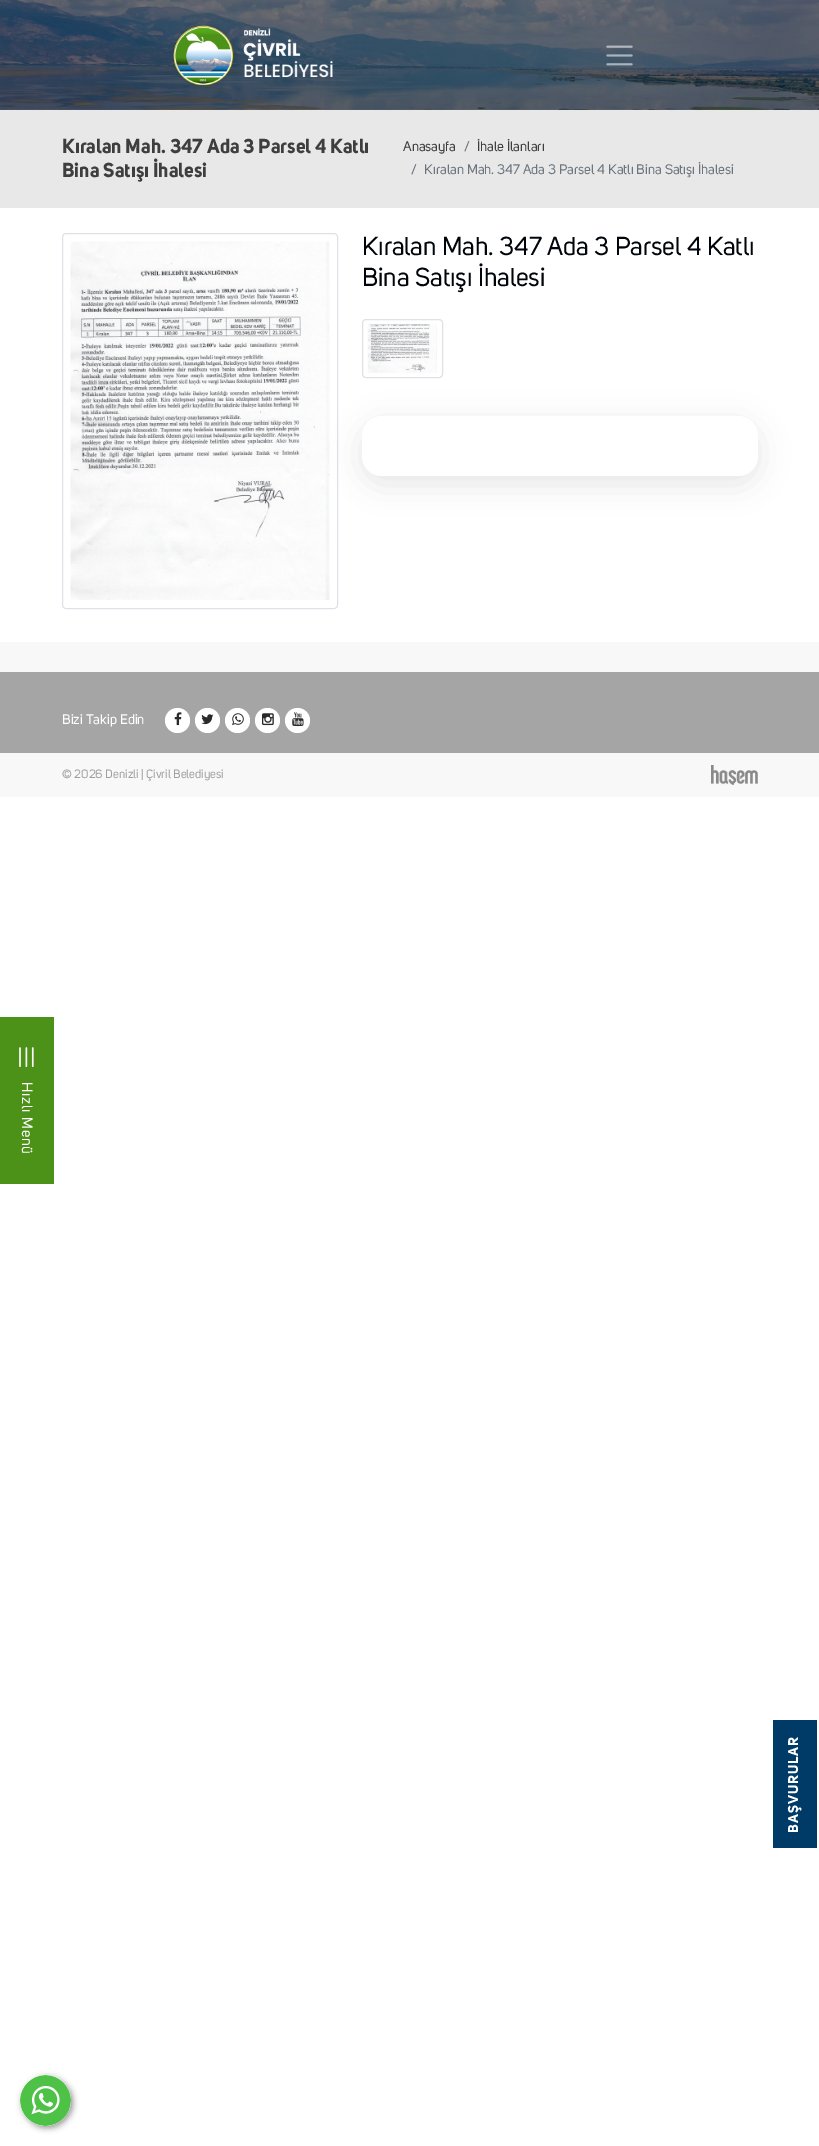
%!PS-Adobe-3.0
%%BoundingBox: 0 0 819 2146
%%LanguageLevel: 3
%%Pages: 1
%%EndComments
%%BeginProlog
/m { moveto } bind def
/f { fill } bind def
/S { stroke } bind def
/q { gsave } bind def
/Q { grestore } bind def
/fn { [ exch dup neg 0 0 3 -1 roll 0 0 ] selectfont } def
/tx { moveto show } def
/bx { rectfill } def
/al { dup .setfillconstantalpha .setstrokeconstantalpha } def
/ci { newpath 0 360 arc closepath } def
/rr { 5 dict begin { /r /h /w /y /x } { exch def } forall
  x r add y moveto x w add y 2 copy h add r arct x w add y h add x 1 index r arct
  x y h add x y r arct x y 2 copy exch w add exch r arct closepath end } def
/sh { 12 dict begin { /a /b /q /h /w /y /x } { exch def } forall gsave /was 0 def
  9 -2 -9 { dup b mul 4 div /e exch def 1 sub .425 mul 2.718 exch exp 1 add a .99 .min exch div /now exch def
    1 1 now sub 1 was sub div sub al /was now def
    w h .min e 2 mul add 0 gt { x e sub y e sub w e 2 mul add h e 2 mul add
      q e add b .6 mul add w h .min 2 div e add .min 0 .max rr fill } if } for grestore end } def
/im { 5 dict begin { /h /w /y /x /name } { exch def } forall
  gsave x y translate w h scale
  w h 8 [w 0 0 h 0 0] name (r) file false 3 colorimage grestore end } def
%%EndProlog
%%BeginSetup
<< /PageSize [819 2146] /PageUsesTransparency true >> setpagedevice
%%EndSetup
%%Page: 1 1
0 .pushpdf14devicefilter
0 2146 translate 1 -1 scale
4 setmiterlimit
1 setgray
0 0 819 2146 bx
(image0.raw) 0 0 819 110 im
(image1.raw) 172 24 161 62 im
(image2.raw) 606 45 27 21 im
0.91 setgray
0 110 819 98 bx
/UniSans-Bold 20 fn
0.243 setgray
(Kıralan Mah. 347 Ada 3 Parsel 4 Katlı) 62 153 tx
(Bina Satışı İhalesi) 62 177 tx
/UniSans-Regular 13.75 fn
(Anasayfa) 403 151 tx
0.424 0.459 0.49 setrgbcolor
(/) 464 151 tx
0.243 setgray
(İhale İlanları) 477 151 tx
0.424 0.459 0.49 setrgbcolor
(/) 411 174 tx
(Kıralan Mah. 347 Ada 3 Parsel 4 Katlı Bina Satışı İhalesi) 424 174 tx
0.871 0.886 0.902 setrgbcolor
62.5 233.5 275 375 3.5 rr S
(image3.raw) 70 241 260 359 im
/UniSans-Regular 25.75 fn
0 0.02 0.043 setrgbcolor
(Kıralan Mah. 347 Ada 3 Parsel 4 Katlı) 362 255 tx
(Bina Satışı İhalesi) 362 286 tx
0.871 0.886 0.902 setrgbcolor
362.5 319.5 80 58 3.5 rr S
(image4.raw) 367 324 70 49 im
0 setgray
362 424 396 60 20 15 0.1 sh
1 setgray
362 416 396 60 20 rr f
0.973 setgray
0 642 819 155 bx
0.647 setgray
0 672 819 81 bx
/UniSans-Regular 13.75 fn
1 setgray
(Bizi Takip Edin) 62 724 tx
177.5 720.5 12.5 ci f
(image5.raw) 174 712 8 14 im
207.5 720.5 12.5 ci f
(image6.raw) 201 714 13 11 im
237.5 720.5 12.5 ci f
(image7.raw) 232 713 12 13 im
267.5 720.5 12.5 ci f
(image8.raw) 262 713 12 13 im
297.5 720.5 12.5 ci f
(image9.raw) 292 712 12 15 im
/UniSans-Regular 12 fn
0.624 setgray
(© 2026 Denizli | Çivril Belediyesi) 62 778 tx
(image10.raw) 711 765 47 20 im
0.298 0.573 0.094 setrgbcolor
0 1017 54 167 bx
(image11.raw) 19 1047 15 20 im
/UniSans-Regular 15 fn
1 setgray
q 22 1082 translate 90 rotate 0 0 m 0.75 0 (Hızlı Menü) ashow Q
0 0.231 0.408 setrgbcolor
773 1720 44 128 bx
/UniSans-Bold 14 fn
1 setgray
q 798 1833 translate -90 rotate 0 0 m 1 0 (BAŞVURULAR) ashow Q
0 setgray
22 2077 51 51 25.5 3 0.4 sh
(image12.raw) 20 2075 51 51 im
.poppdf14devicefilter showpage
%%EOF
